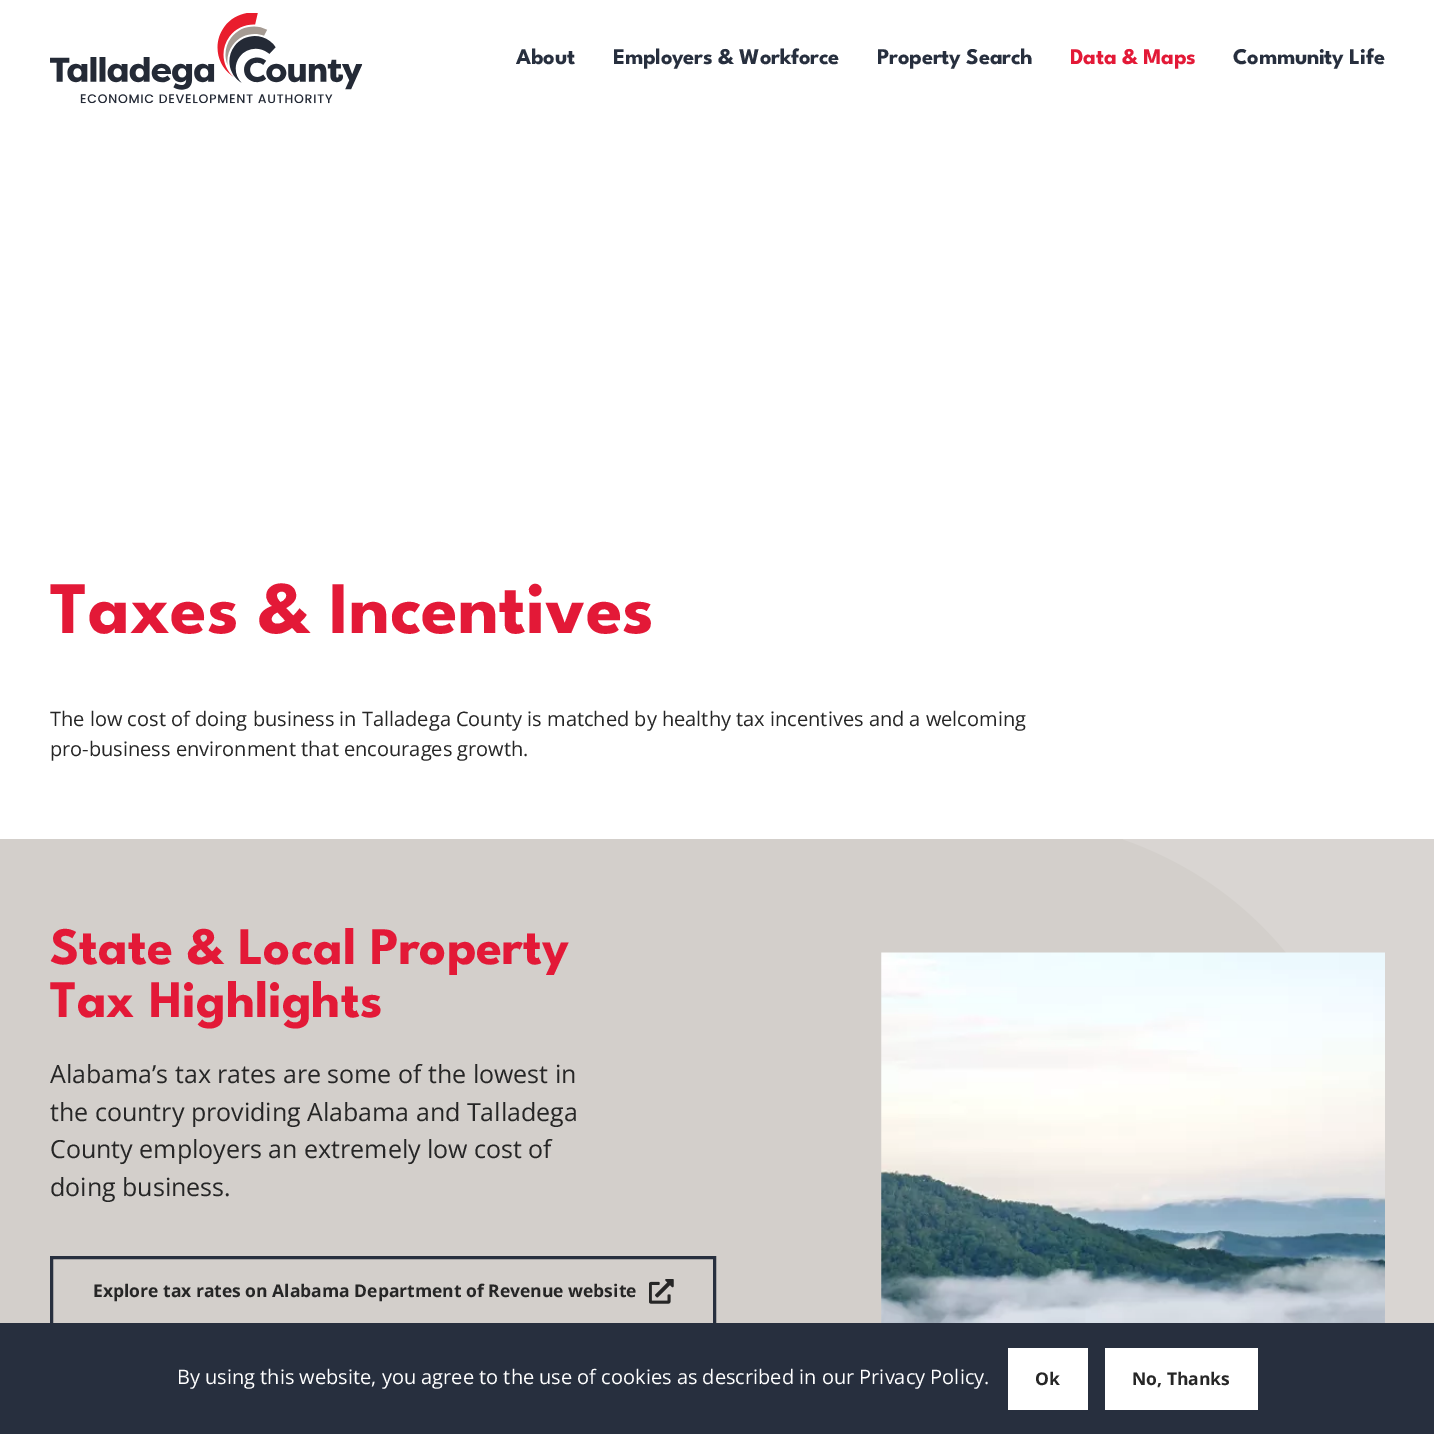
%!PS-Adobe-3.0
%%BoundingBox: 0 0 1434 1434
%%LanguageLevel: 3
%%Pages: 1
%%EndComments
%%BeginProlog
/m { moveto } bind def
/w { setlinewidth } bind def
/fn { [ exch dup neg 0 0 3 -1 roll 0 0 ] selectfont } def
/tx { moveto show } def
/bx { rectfill } def
/im { 5 dict begin { /h /w /y /x /name } { exch def } forall
  gsave x y translate w h scale
  w h 8 [w 0 0 h 0 0] name (r) file false 3 colorimage grestore end } def
%%EndProlog
%%BeginSetup
<< /PageSize [1434 1434] >> setpagedevice
%%EndSetup
%%Page: 1 1
0 1434 translate 1 -1 scale
4 setmiterlimit
1 setgray
0 0 1434 1434 bx
(image0.raw) 50 13 313 91 im
/LeagueSpartan-Thin 22.5 fn
0.153 0.184 0.243 setrgbcolor
516 64 m -0.25 0 (About) ashow
613 64 m -0.25 0 (Employers & Workforce) ashow
877 64 m -0.25 0 (Property Search) ashow
0.89 0.098 0.216 setrgbcolor
1070 64 m -0.25 0 (Data & Maps) ashow
0.153 0.184 0.243 setrgbcolor
1233 64 m -0.25 0 (Community Life) ashow
/LeagueSpartan-Thin 74 fn
0.89 0.098 0.216 setrgbcolor
(Taxes & Incentives) 50 633 tx
/OpenSans-Regular 20 fn
0.149 setgray
(The low cost of doing business in Talladega County is matched by healthy tax incentives and a welcoming) 50 726 tx
(pro-business environment that encourages growth.) 50 756 tx
0.827 0.812 0.796 setrgbcolor
0 839 1434 484 bx
(image1.raw) 1123 839 311 484 im
/LeagueSpartan-Thin 52.5 fn
0.89 0.098 0.216 setrgbcolor
(State & Local Property) 50 964 tx
(Tax Highlights) 50 1017 tx
/OpenSans-Regular 25 fn
0.149 setgray
(Alabama’s tax rates are some of the lowest in) 50 1083 tx
(the country providing Alabama and Talladega) 50 1121 tx
(County employers an extremely low cost of) 50 1158 tx
(doing business.) 50 1196 tx
0.153 0.184 0.243 setrgbcolor
3 w
51.5 1257.5 663 67 rectstroke
/OpenSans-Bold 17.5 fn
0.149 setgray
(Explore tax rates on Alabama Department of Revenue website) 93 1297 tx
(image2.raw) 649 1279 25 25 im
(image3.raw) 881 952 504 371 im
0.153 0.184 0.243 setrgbcolor
0 1323 1434 111 bx
/OpenSans-Regular 20 fn
1 setgray
(By using this website, you agree to the use of cookies as described in our Privacy Policy.) 177 1384 tx
1008 1348 80 62 bx
/OpenSans-Bold 17.5 fn
0.149 setgray
(Ok) 1035 1385 tx
1 setgray
1105 1348 153 62 bx
0.149 setgray
(No, Thanks) 1132 1385 tx
showpage
%%EOF
